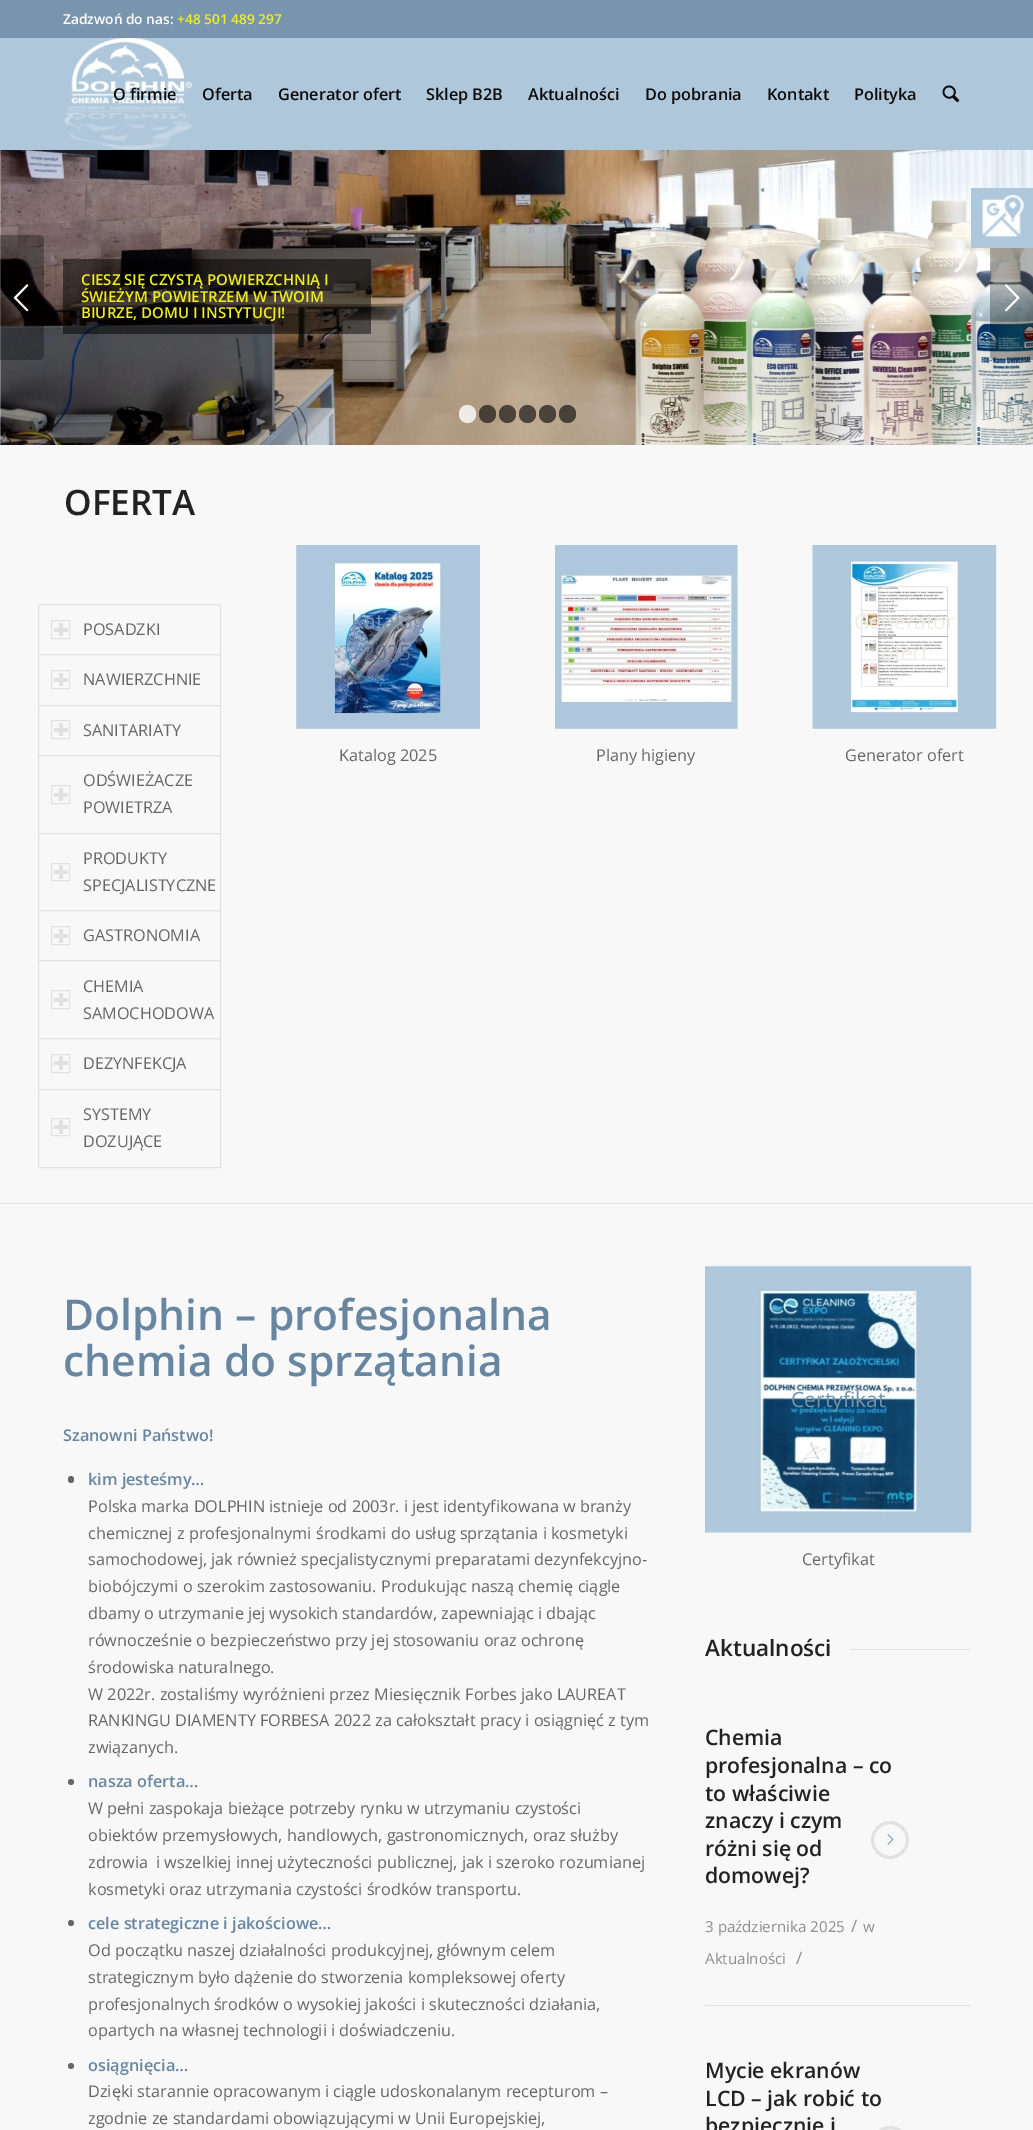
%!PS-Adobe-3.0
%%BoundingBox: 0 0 1033 2130
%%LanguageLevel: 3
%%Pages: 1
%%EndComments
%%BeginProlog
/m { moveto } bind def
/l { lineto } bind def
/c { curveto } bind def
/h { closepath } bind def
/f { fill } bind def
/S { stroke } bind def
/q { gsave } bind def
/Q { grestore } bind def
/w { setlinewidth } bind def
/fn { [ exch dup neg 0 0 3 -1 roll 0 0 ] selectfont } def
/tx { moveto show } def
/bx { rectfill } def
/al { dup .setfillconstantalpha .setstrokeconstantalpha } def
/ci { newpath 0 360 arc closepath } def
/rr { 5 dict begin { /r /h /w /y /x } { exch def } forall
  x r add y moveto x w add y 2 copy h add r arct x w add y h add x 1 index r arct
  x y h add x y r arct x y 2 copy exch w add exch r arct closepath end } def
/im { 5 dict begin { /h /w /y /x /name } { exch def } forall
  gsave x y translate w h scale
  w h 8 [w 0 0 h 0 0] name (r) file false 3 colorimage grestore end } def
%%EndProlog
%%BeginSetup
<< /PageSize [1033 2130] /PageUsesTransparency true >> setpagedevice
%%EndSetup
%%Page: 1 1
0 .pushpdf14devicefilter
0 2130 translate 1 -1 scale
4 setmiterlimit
0.973 setgray
0 0 1033 2130 bx
0.475 0.584 0.678 setrgbcolor
0 0 1033 38 bx
/OpenSans-SemiBold 13.75 fn
1 setgray
(Zadzwoń do nas:) 63 24 tx
0.933 0.933 0.133 setrgbcolor
(+48 501 489 297) 177 24 tx
0.686 0.78 0.859 setrgbcolor
0 38 1033 112 bx
(image0.raw) 63 38 130 112 im
/OpenSans-SemiBold 16.25 fn
0.051 0.047 0.051 setrgbcolor
(O firmie) 113 100 tx
(Oferta) 202 100 tx
(Generator ofert) 278 100 tx
(Sklep B2B) 426 100 tx
(Aktualności) 528 100 tx
(Do pobrania) 645 100 tx
(Kontakt) 767 100 tx
(Polityka) 854 100 tx
(image1.raw) 942 85 18 18 im
(image4.raw) 0 150 1033 295 im
0.3 al
0 setgray
0 235 m 40 235 l 42 235 44 237 44 239 c 44 356 l 44 358 42 360 40 360 c 0 360 l h f
1 al
(image2.raw) 13 284 16 28 im
0.3 al
994 235 m 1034 235 l 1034 360 l 994 360 l 992 360 990 358 990 356 c 990 239 l 990 237 992 235 994 235 c h f
1 al
(image3.raw) 1005 284 15 28 im
0.5 al
63 259 308 75 bx
/OpenSans-SemiBold 15 fn
1 al
0.933 0.933 0.133 setrgbcolor
(CIESZ SIĘ CZYSTĄ POWIERZCHNIĄ I) 81 285 tx
(ŚWIEŻYM POWIETRZEM W TWOIM) 81 302 tx
(BIURZE, DOMU I INSTYTUCJI!) 81 318 tx
0.8 al
1 setgray
459 405 17 18 8.5 rr f
0.6 al
0 setgray
479 405 17 18 8.5 rr f
499 405 17 18 8.5 rr f
519 405 17 18 8.5 rr f
539 405 17 18 8.5 rr f
559 405 17 18 8.5 rr f
/OpenSans-SemiBold 35 fn
1 al
0.133 setgray
(OFERTA) 64 515 tx
0.882 setgray
40.5 604.5 m 218.5 604.5 l 219.5 604.5 220.5 605.5 220.5 606.5 c 220.5 654.5 l 38.5 654.5 l 38.5 606.5 l 38.5 605.5 39.5 604.5 40.5 604.5 c h S
51.5 620.5 18 18 rectstroke
59 623 4 13 bx
54 628 14 4 bx
/OpenSans-Regular 16.25 fn
0.4 setgray
(POSADZKI) 83 635 tx
0.973 setgray
40.5 654.5 m 218.5 654.5 l 219.5 654.5 220.5 655.5 220.5 656.5 c 220.5 705.5 l 38.5 705.5 l 38.5 656.5 l 38.5 655.5 39.5 654.5 40.5 654.5 c h q f Q
0.882 setgray
S
51.5 670.5 18 18 rectstroke
59 673 4 13 bx
54 678 14 4 bx
0.4 setgray
(NAWIERZCHNIE) 83 685 tx
0.973 setgray
40.5 705.5 m 218.5 705.5 l 219.5 705.5 220.5 706.5 220.5 707.5 c 220.5 755.5 l 38.5 755.5 l 38.5 707.5 l 38.5 706.5 39.5 705.5 40.5 705.5 c h q f Q
0.882 setgray
S
51.5 720.5 18 18 rectstroke
59 723 4 13 bx
54 728 14 4 bx
0.4 setgray
(SANITARIATY) 83 736 tx
0.973 setgray
40.5 755.5 m 218.5 755.5 l 219.5 755.5 220.5 756.5 220.5 757.5 c 220.5 833.5 l 38.5 833.5 l 38.5 757.5 l 38.5 756.5 39.5 755.5 40.5 755.5 c h q f Q
0.882 setgray
S
0.4 setgray
(ODŚWIEŻACZE) 83 786 tx
0.882 setgray
51.5 785.5 18 18 rectstroke
59 788 4 13 bx
54 793 14 4 bx
0.4 setgray
(POWIETRZA) 83 813 tx
0.973 setgray
40.5 833.5 m 218.5 833.5 l 219.5 833.5 220.5 834.5 220.5 835.5 c 220.5 910.5 l 38.5 910.5 l 38.5 835.5 l 38.5 834.5 39.5 833.5 40.5 833.5 c h q f Q
0.882 setgray
S
0.4 setgray
(PRODUKTY) 83 864 tx
0.882 setgray
51.5 863.5 18 17 rectstroke
59 865 4 14 bx
54 870 14 4 bx
0.4 setgray
(SPECJALISTYCZNE) 83 891 tx
0.973 setgray
40.5 910.5 m 218.5 910.5 l 219.5 910.5 220.5 911.5 220.5 912.5 c 220.5 960.5 l 38.5 960.5 l 38.5 912.5 l 38.5 911.5 39.5 910.5 40.5 910.5 c h q f Q
0.882 setgray
S
51.5 926.5 18 18 rectstroke
59 929 4 14 bx
54 934 14 4 bx
0.4 setgray
(GASTRONOMIA) 83 941 tx
0.973 setgray
40.5 960.5 m 218.5 960.5 l 219.5 960.5 220.5 961.5 220.5 962.5 c 220.5 1038.5 l 38.5 1038.5 l 38.5 962.5 l 38.5 961.5 39.5 960.5 40.5 960.5 c h q f Q
0.882 setgray
S
0.4 setgray
(CHEMIA) 83 992 tx
0.882 setgray
51.5 990.5 18 18 rectstroke
59 993 4 13 bx
54 998 14 4 bx
0.4 setgray
(SAMOCHODOWA) 83 1019 tx
0.973 setgray
40.5 1038.5 m 218.5 1038.5 l 219.5 1038.5 220.5 1039.5 220.5 1040.5 c 220.5 1089.5 l 38.5 1089.5 l 38.5 1040.5 l 38.5 1039.5 39.5 1038.5 40.5 1038.5 c h q f Q
0.882 setgray
S
51.5 1054.5 18 18 rectstroke
59 1056 4 14 bx
54 1061 14 4 bx
0.4 setgray
(DEZYNFEKCJA) 83 1069 tx
0.973 setgray
40.5 1089.5 m 218.5 1089.5 l 219.5 1089.5 220.5 1090.5 220.5 1091.5 c 220.5 1167.5 l 38.5 1167.5 l 38.5 1091.5 l 38.5 1090.5 39.5 1089.5 40.5 1089.5 c h q f Q
0.882 setgray
S
0.4 setgray
(SYSTEMY) 83 1120 tx
0.882 setgray
51.5 1118.5 18 17 rectstroke
59 1120 4 14 bx
54 1125 14 4 bx
0.4 setgray
(DOZUJĄCE) 83 1147 tx
(image5.raw) 296 545 184 184 im
/OpenSans-Regular 21 fn
0.475 0.569 0.675 setrgbcolor
(Katalog) 351 629 tx
0.392 0.447 0.553 setrgbcolor
(2025) 363 660 tx
/OpenSans-Regular 16.25 fn
0.4 setgray
(Katalog 2025) 339 761 tx
(image6.raw) 555 545 183 184 im
(Plany higieny) 596 761 tx
(image7.raw) 812 545 185 184 im
/OpenSans-Regular 21 fn
0.933 0.925 0.914 setrgbcolor
(Generator) 854 629 tx
(ofert) 881 660 tx
/OpenSans-Regular 16.25 fn
0.4 setgray
(Generator ofert) 845 761 tx
0.882 setgray
0 1203 1033 1 bx
/OpenSans-SemiBold 42.5 fn
0.404 0.525 0.631 setrgbcolor
(Dolphin – profesjonalna) 63 1330 tx
(chemia do sprzątania) 63 1376 tx
/OpenSans-SemiBold 16.25 fn
(Szanowni Państwo!) 63 1441 tx
0.4 setgray
68 1476 6 7 3 rr f
0.404 0.525 0.631 setrgbcolor
(kim jesteśmy…) 88 1485 tx
/OpenSans-Regular 16.25 fn
0.4 setgray
(Polska marka DOLPHIN istnieje od 2003r. i jest identyfikowana w branży) 88 1512 tx
(chemicznej z profesjonalnymi środkami do usług sprzątania i kosmetyki) 88 1539 tx
(samochodowej, jak również specjalistycznymi preparatami dezynfekcyjno-) 88 1565 tx
(biobójczymi o szerokim zastosowaniu. Produkując naszą chemię ciągle) 88 1592 tx
(dbamy o utrzymanie jej wysokich standardów, zapewniając i dbając) 88 1619 tx
(równocześnie o bezpieczeństwo przy jej stosowaniu oraz ochronę) 88 1646 tx
(środowiska naturalnego.) 88 1673 tx
(W 2022r. zostaliśmy wyróżnieni przez Miesięcznik Forbes jako LAUREAT) 88 1700 tx
(RANKINGU DIAMENTY FORBESA 2022 za całokształt pracy i osiągnięć z tym) 88 1726 tx
(związanych.) 88 1753 tx
71 1782 3 ci f
/OpenSans-SemiBold 16.25 fn
0.404 0.525 0.631 setrgbcolor
(nasza oferta…) 88 1787 tx
/OpenSans-Regular 16.25 fn
0.4 setgray
(W pełni zaspokaja bieżące potrzeby rynku w utrzymaniu czystości) 88 1814 tx
(obiektów przemysłowych, handlowych, gastronomicznych, oraz służby) 88 1841 tx
(zdrowia  i wszelkiej innej użyteczności publicznej, jak i szeroko rozumianej) 88 1868 tx
(kosmetyki oraz utrzymania czystości środków transportu.) 88 1895 tx
71 1923 3 ci f
/OpenSans-SemiBold 16.25 fn
0.404 0.525 0.631 setrgbcolor
(cele strategiczne i jakościowe…) 88 1929 tx
/OpenSans-Regular 16.25 fn
0.4 setgray
(Od początku naszej działalności produkcyjnej, głównym celem) 88 1956 tx
(strategicznym było dążenie do stworzenia kompleksowej oferty) 88 1983 tx
(profesjonalnych środków o wysokiej jakości i skuteczności działania,) 88 2010 tx
(opartych na własnej technologii i doświadczeniu.) 88 2036 tx
71 2066 3 ci f
/OpenSans-SemiBold 16.25 fn
0.404 0.525 0.631 setrgbcolor
(osiągnięcia…) 88 2071 tx
/OpenSans-Regular 16.25 fn
0.4 setgray
(Dzięki starannie opracowanym i ciągle udoskonalanym recepturom –) 88 2097 tx
(zgodnie ze standardami obowiązującymi w Unii Europejskiej,) 88 2124 tx
(image8.raw) 705 1266 267 267 im
/OpenSans-Regular 21 fn
0.443 0.58 0.671 setrgbcolor
(Certyfikat) 791 1407 tx
/OpenSans-Regular 16.25 fn
0.4 setgray
(Certyfikat) 802 1565 tx
/OpenSans-SemiBold 22.5 fn
0.133 setgray
(Aktualności) 705 1656 tx
0.886 setgray
850 1649 121 1 bx
/OpenSans-SemiBold 21.25 fn
0.133 setgray
(Chemia) 705 1745 tx
(profesjonalna – co) 705 1773 tx
(to właściwie) 705 1801 tx
(znaczy i czym) 705 1828 tx
(różni się od) 705 1856 tx
(domowej?) 705 1883 tx
0.882 setgray
3 w
890 1840 17.5 ci S
(image9.raw) 887 1834 7 11 im
/OpenSans-Regular 15.1 fn
0.553 setgray
(3 października 2025) 705 1932 tx
/OpenSans-Regular 17 fn
(/) 851 1932 tx
/OpenSans-Regular 15.1 fn
(w) 863 1932 tx
(Aktualności) 705 1964 tx
/OpenSans-Regular 17 fn
(/) 796 1964 tx
0.882 setgray
705 2005 266 1 bx
/OpenSans-SemiBold 21.25 fn
0.133 setgray
(Mycie ekranów) 705 2078 tx
(LCD – jak robić to) 705 2106 tx
(bezpiecznie i) 705 2133 tx
0.882 setgray
872.5 2127.5 35 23 17.5 rr S
0.686 0.78 0.859 setrgbcolor
971 188 62 60 bx
(image10.raw) 982 194 42 43 im
.poppdf14devicefilter showpage
%%EOF
